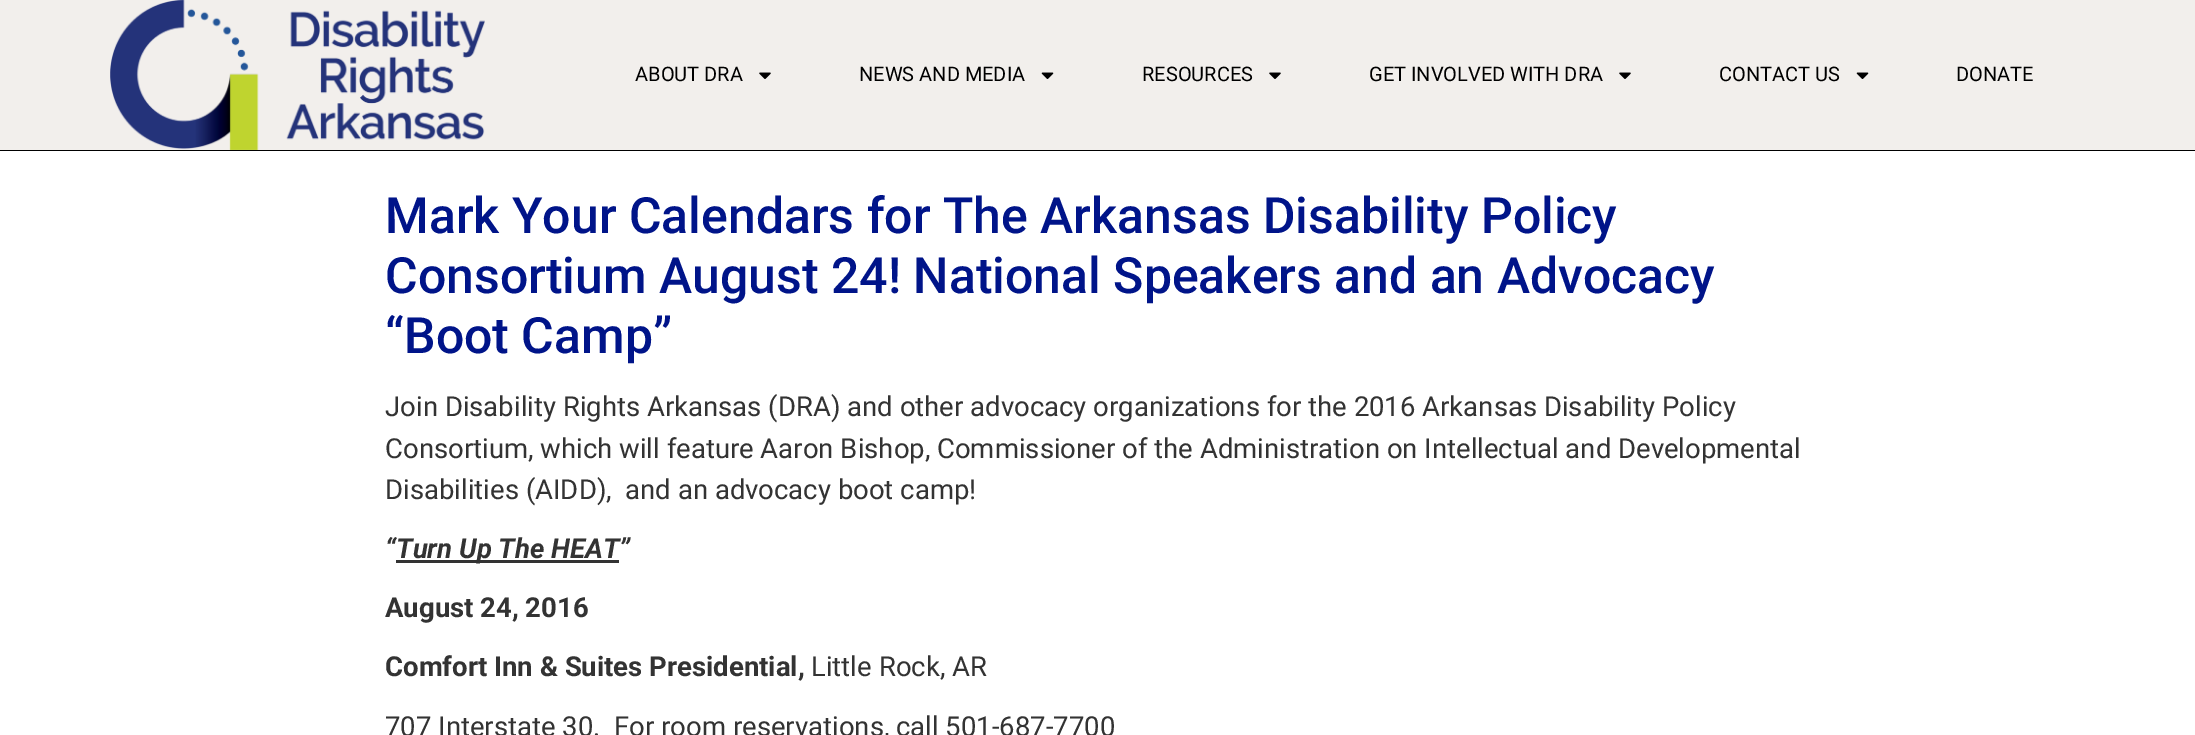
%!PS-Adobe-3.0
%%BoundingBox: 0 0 2195 735
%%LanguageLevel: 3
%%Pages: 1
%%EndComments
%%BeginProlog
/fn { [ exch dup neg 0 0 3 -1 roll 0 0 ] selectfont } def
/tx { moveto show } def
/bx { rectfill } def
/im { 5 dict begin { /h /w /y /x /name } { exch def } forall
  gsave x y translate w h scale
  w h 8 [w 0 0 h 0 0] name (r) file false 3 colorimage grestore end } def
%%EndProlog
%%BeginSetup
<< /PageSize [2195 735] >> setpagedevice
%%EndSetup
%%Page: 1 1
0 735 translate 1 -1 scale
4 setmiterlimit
1 setgray
0 0 2195 735 bx
0.949 0.937 0.925 setrgbcolor
0 0 2195 150 bx
0 setgray
0 150 2195 1 bx
(image0.raw) 110 0 375 150 im
/Roboto-Regular 20 fn
(ABOUT DRA) 635 81 tx
(image1.raw) 759 72 12 7 im
(NEWS AND MEDIA) 859 81 tx
(image2.raw) 1041 72 13 7 im
(RESOURCES) 1142 81 tx
(image1.raw) 1269 72 12 7 im
(GET INVOLVED WITH DRA) 1369 81 tx
(image1.raw) 1619 72 12 7 im
(CONTACT US) 1719 81 tx
(image2.raw) 1856 72 13 7 im
(DONATE) 1956 81 tx
/Roboto-Medium 50 fn
0 0.078 0.537 setrgbcolor
(Mark Your Calendars for The Arkansas Disability Policy) 385 233 tx
(Consortium August 24! National Speakers and an Advocacy) 385 293 tx
(“Boot Camp”) 385 353 tx
/Roboto-Regular 27.5 fn
0.2 setgray
(Join Disability Rights Arkansas \(DRA\) and other advocacy organizations for the 2016 Arkansas Disability Policy) 385 416 tx
(Consortium, which will feature Aaron Bishop, Commissioner of the Administration on Intellectual and Developmental) 385 458 tx
(Disabilities \(AIDD\),  and an advocacy boot camp!) 385 499 tx
/Roboto-BoldItalic 27.5 fn
(“) 385 558 tx
396 560 223 3 bx
(Turn Up The HEAT”) 396 558 tx
/Roboto-Bold 27.5 fn
(August 24, 2016) 385 617 tx
(Comfort Inn & Suites Presidential,) 385 676 tx
/Roboto-Regular 27.5 fn
(Little Rock, AR) 811 676 tx
(707 Interstate 30.  For room reservations, call 501-687-7700) 385 736 tx
showpage
%%EOF
